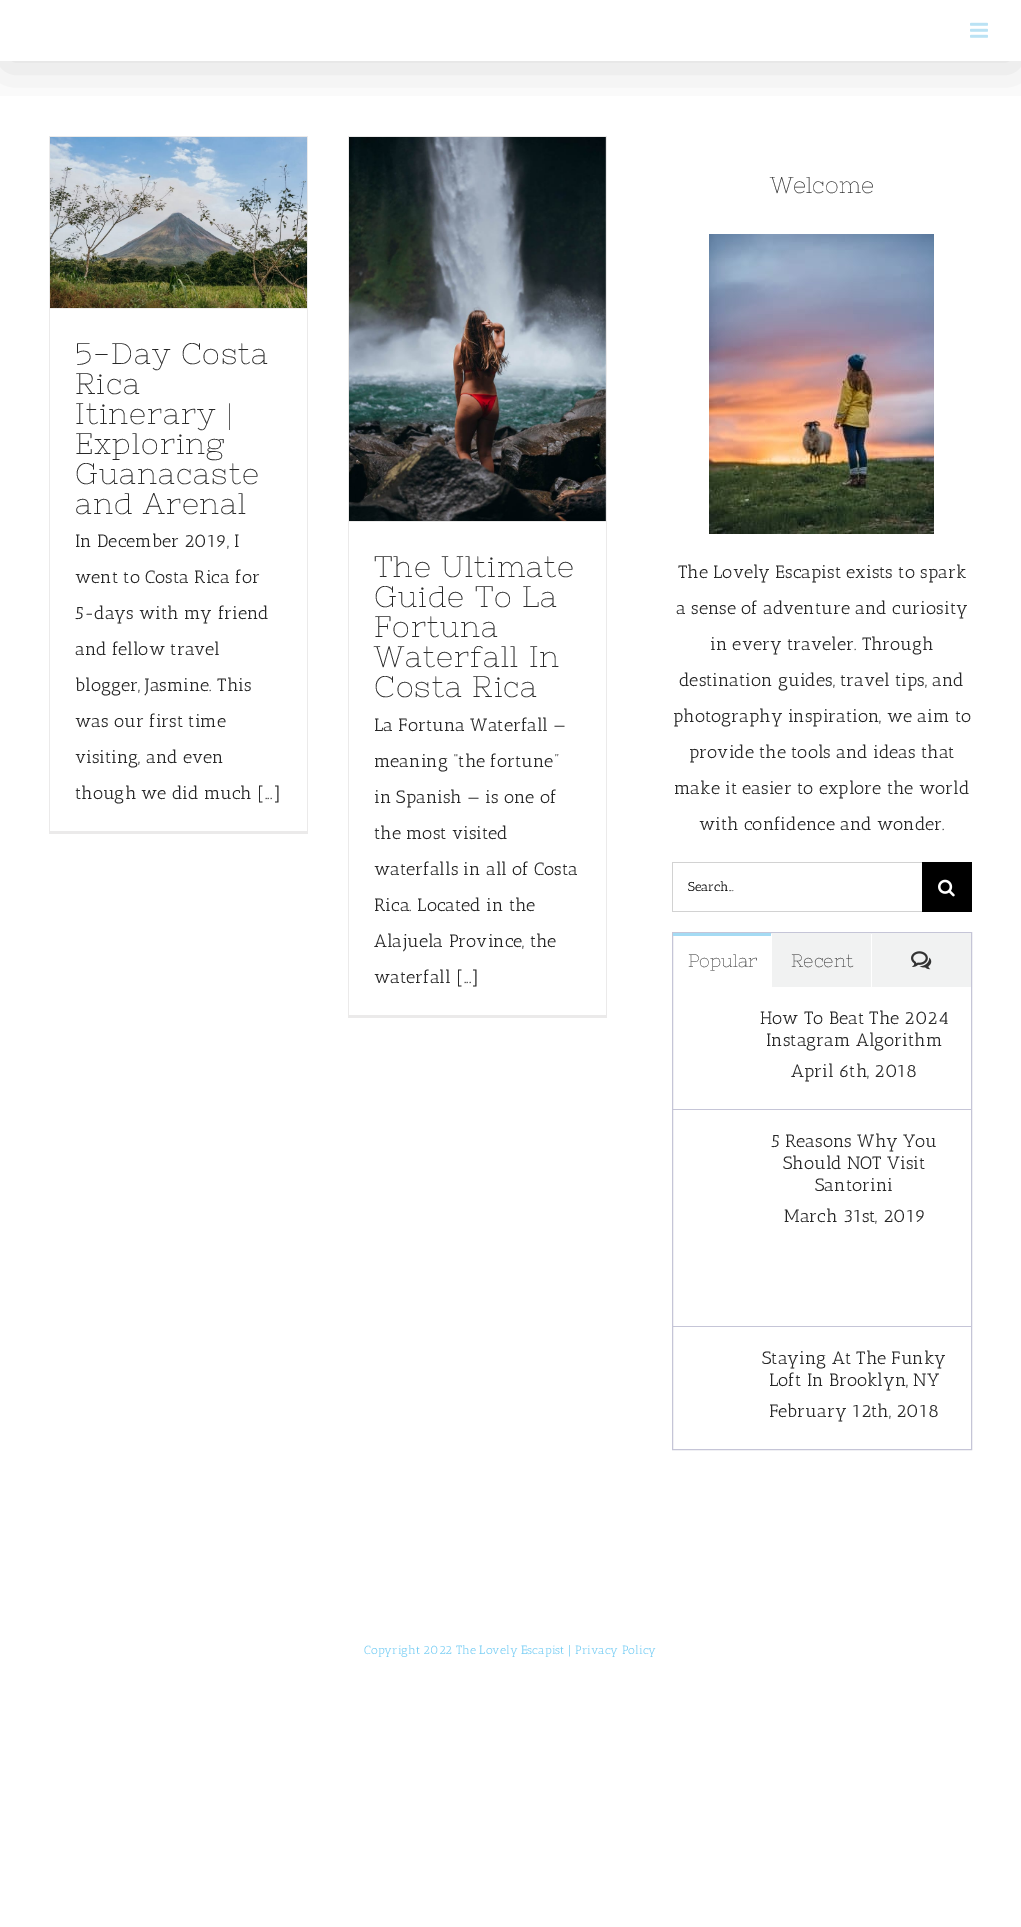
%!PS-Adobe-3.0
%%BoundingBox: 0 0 1021 1927
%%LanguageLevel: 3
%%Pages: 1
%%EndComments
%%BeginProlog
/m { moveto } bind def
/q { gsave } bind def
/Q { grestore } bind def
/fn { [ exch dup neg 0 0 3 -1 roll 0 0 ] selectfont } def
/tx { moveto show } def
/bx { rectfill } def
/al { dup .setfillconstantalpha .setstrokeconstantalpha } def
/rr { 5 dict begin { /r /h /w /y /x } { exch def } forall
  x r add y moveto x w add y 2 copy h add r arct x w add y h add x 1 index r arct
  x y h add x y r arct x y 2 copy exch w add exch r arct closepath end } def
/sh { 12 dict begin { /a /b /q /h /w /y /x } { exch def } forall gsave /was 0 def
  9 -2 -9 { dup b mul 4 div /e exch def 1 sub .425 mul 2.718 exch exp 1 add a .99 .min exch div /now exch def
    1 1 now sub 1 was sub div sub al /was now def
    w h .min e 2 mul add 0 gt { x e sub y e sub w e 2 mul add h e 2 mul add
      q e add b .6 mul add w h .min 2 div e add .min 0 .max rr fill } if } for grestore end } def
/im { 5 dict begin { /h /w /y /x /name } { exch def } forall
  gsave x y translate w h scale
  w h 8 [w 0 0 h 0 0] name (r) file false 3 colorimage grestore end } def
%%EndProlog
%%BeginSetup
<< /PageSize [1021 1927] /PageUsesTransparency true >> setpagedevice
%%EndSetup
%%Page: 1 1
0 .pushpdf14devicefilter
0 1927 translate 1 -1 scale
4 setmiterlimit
1 setgray
0 0 1021 1927 bx
0.922 0.918 0.918 setrgbcolor
49 136 259 1 bx
307 136 1 698 bx
49 831 259 3 bx
49 136 1 698 bx
(image1.raw) 50 137 257 171 im
348 136 259 1 bx
606 136 1 882 bx
348 1015 259 3 bx
348 136 1 882 bx
(image2.raw) 349 137 257 384 im
q
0 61 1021 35 rectclip
0 setgray
2 12 1017 57 0 25 0.14 sh
Q
(image0.raw) 970 22 18 16 im
50 308 257 1 bx
/NixieOne-Regular 29.75 fn
0.157 setgray
75 364 m 1 0 (5-Day Costa) ashow
75 394 m 1 0 (Rica) ashow
75 424 m 1 0 (Itinerary |) ashow
75 454 m 1 0 (Exploring) ashow
75 484 m 1 0 (Guanacaste) ashow
75 514 m 1 0 (and Arenal) ashow
/AnticSlab-Regular 18 fn
(In December 2019, I) 75 547 tx
(went to Costa Rica for) 75 583 tx
(5-days with my friend) 75 619 tx
(and fellow travel) 75 655 tx
(blogger, Jasmine. This) 75 691 tx
(was our first time) 75 727 tx
(visiting, and even) 75 763 tx
(though we did much [...]) 75 799 tx
0.922 0.918 0.918 setrgbcolor
349 521 257 1 bx
/NixieOne-Regular 29.75 fn
0.157 setgray
374 577 m 1 0 (The Ultimate) ashow
374 607 m 1 0 (Guide To La) ashow
374 637 m 1 0 (Fortuna) ashow
374 667 m 1 0 (Waterfall In) ashow
374 697 m 1 0 (Costa Rica) ashow
/AnticSlab-Regular 18 fn
(La Fortuna Waterfall —) 374 731 tx
(meaning “the fortune”) 374 767 tx
(in Spanish — is one of) 374 803 tx
(the most visited) 374 839 tx
(waterfalls in all of Costa) 374 875 tx
(Rica. Located in the) 374 911 tx
(Alajuela Province, the) 374 947 tx
(waterfall [...]) 374 983 tx
/NixieOne-Regular 23 fn
0.2 setgray
(Welcome) 770 193 tx
(image3.raw) 709 234 225 300 im
/AnticSlab-Regular 18 fn
0.157 setgray
(The Lovely Escapist exists to spark) 678 578 tx
(a sense of adventure and curiosity) 676 614 tx
(in every traveler. Through) 710 650 tx
(destination guides, travel tips, and) 679 686 tx
(photography inspiration, we aim to) 673 722 tx
(provide the tools and ideas that) 689 758 tx
(make it easier to explore the world) 674 794 tx
(with confidence and wonder.) 699 830 tx
0.824 setgray
672 862 250 1 bx
672 911 250 1 bx
672 862 1 50 bx
/AnticSlab-Regular 13 fn
0 setgray
(Search...) 688 891 tx
922 862 50 50 bx
(image4.raw) 938 879 17 18 im
0.773 0.773 0.843 setrgbcolor
672.5 932.5 299 517 rectstroke
0.643 0.859 0.957 setrgbcolor
673 933 98 3 bx
/NixieOne-Regular 18 fn
0.2 setgray
(Popular) 688 967 tx
0.945 0.949 0.949 setrgbcolor
772 933 99 54 bx
0.2 setgray
(Recent) 791 967 tx
0.945 0.949 0.949 setrgbcolor
872 933 99 54 bx
(image5.raw) 911 951 21 19 im
0.773 0.773 0.843 setrgbcolor
673 1109 298 1 bx
/AnticSlab-Regular 18 fn
0.157 setgray
(How To Beat The 2024) 760 1024 tx
(Instagram Algorithm) 766 1046 tx
(April 6th, 2018) 791 1077 tx
0.773 0.773 0.843 setrgbcolor
673 1326 298 1 bx
0.157 setgray
(5 Reasons Why You) 771 1147 tx
(Should NOT Visit) 783 1169 tx
(Santorini) 815 1191 tx
(March 31st, 2019) 784 1222 tx
(Staying At The Funky) 762 1364 tx
(Loft In Brooklyn, NY) 769 1386 tx
(February 12th, 2018) 769 1417 tx
/AnticSlab-Regular 12 fn
0.478 0.808 0.957 setrgbcolor
(Copyright 2022 The Lovely Escapist | Privacy Policy) 364 1654 tx
.poppdf14devicefilter showpage
%%EOF
